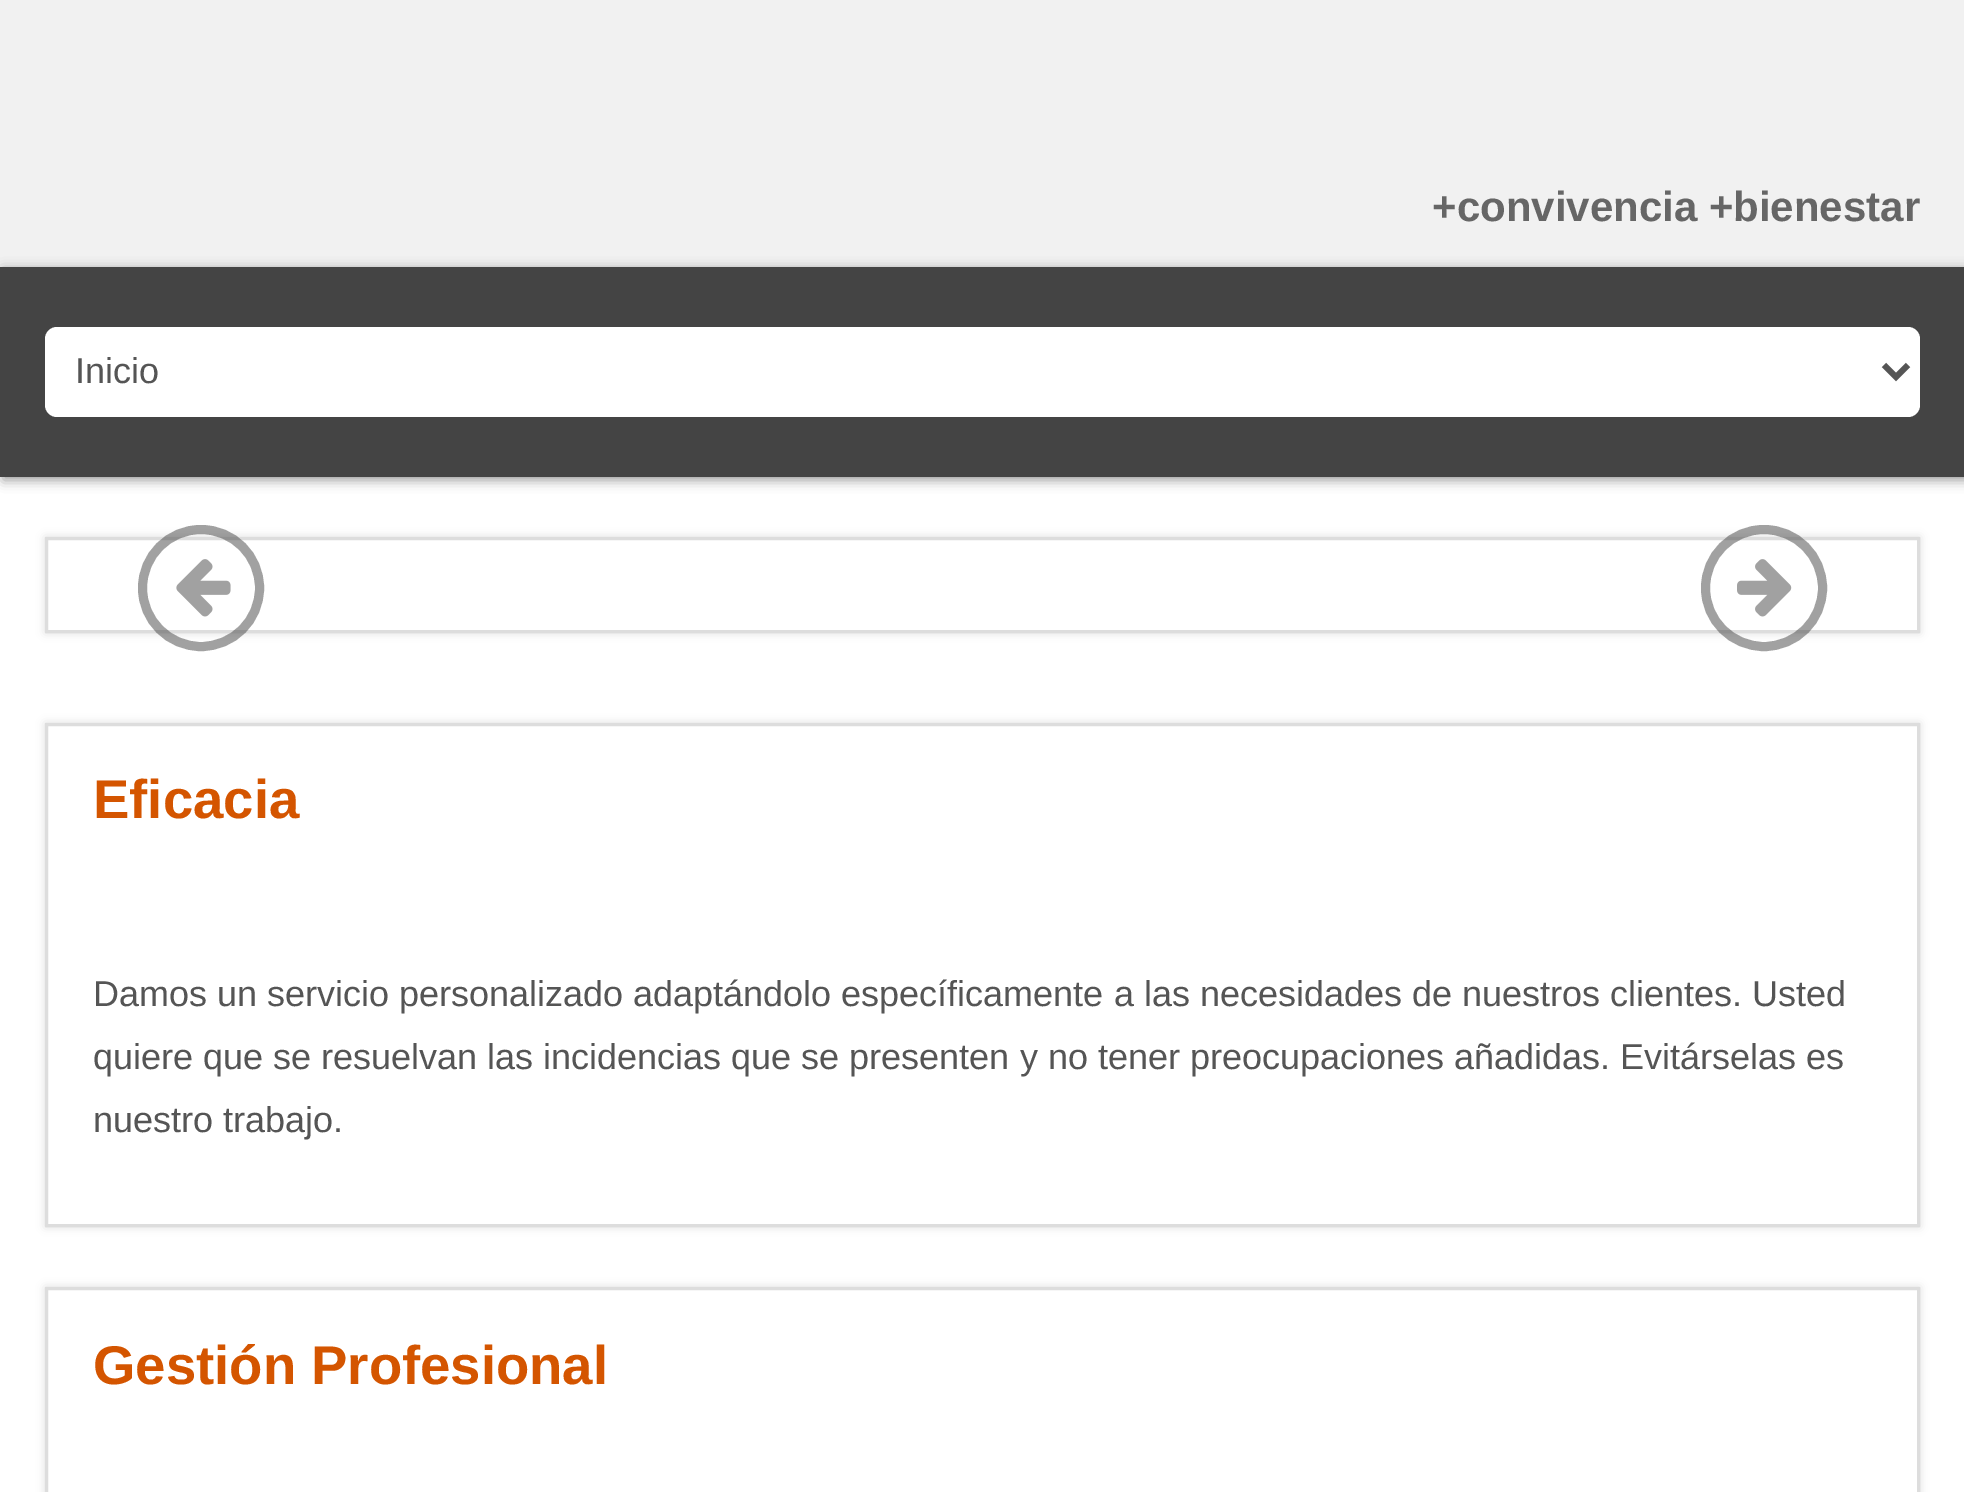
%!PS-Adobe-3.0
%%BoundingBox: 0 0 1964 1492
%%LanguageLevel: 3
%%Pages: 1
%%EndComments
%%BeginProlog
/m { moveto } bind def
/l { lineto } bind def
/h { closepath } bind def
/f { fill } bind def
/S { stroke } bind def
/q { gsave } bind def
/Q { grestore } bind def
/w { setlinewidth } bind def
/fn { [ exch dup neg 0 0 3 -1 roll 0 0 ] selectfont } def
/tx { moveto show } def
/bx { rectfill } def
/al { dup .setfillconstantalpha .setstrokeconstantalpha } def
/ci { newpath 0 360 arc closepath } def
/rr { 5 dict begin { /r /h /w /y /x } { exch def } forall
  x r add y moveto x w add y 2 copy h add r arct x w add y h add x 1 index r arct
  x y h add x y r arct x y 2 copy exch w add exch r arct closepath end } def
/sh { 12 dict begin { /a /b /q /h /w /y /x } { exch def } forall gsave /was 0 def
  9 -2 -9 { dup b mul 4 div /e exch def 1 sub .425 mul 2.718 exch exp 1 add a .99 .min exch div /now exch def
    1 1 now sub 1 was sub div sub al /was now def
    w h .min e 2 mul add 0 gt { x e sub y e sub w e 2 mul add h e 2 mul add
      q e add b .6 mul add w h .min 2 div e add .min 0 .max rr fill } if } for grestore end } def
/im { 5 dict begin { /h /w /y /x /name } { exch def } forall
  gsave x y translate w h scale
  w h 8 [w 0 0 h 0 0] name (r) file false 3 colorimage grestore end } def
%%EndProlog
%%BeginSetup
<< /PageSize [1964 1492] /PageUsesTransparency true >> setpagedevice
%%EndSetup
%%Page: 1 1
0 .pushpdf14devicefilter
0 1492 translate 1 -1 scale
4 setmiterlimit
1 setgray
0 0 1964 1492 bx
0.945 setgray
0 0 1964 267 bx
/LiberationSans-Bold 42 fn
0.4 setgray
(+convivencia +bienestar) 1432 221 tx
0 setgray
3 270 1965 210 0 6 0.4 sh
0.267 setgray
0 267 1964 210 bx
1 setgray
45 327 1875 90 12 rr f
0.333 setgray
6 w
1884 365 m 1896 377 l 1908 365 l S
/LiberationSans-Regular 36 fn
(Inicio) 75 383 tx
q
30 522 m 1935 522 l 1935 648 l 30 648 l h 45 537 m 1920 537 l 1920 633 l 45 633 l h eoclip newpath
0 setgray
45 537 1875 96 0 4.5 0.13 sh
Q
0.867 setgray
3 w
46.5 538.5 1872 93 rectstroke
0.5 al
0.267 setgray
9 w
201 588 58.5 ci S
1 al
(image0.raw) 176 559 55 58 im
0.5 al
1764 588 58.5 ci S
1 al
(image1.raw) 1737 559 55 58 im
q
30 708 m 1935 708 l 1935 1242 l 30 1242 l h 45 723 m 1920 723 l 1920 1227 l 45 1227 l h eoclip newpath
0 setgray
45 723 1875 504 0 4.5 0.13 sh
Q
0.867 setgray
3 w
46.5 724.5 1872 501 rectstroke
/LiberationSans-Bold 54.5 fn
0.831 0.333 0 setrgbcolor
(Eficacia) 93 818 tx
/LiberationSans-Regular 36 fn
0.333 setgray
(Damos un servicio personalizado adaptándolo específicamente a las necesidades de nuestros clientes. Usted) 93 1006 tx
(quiere que se resuelvan las incidencias que se presenten y no tener preocupaciones añadidas. Evitárselas es) 93 1069 tx
(nuestro trabajo.) 93 1132 tx
q
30 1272 m 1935 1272 l 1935 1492 l 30 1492 l h 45 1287 m 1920 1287 l 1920 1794 l 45 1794 l h eoclip newpath
0 setgray
45 1287 1875 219 0 4.5 0.13 sh
Q
0.867 setgray
46.5 1288.5 1872 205 rectstroke
/LiberationSans-Bold 54.5 fn
0.831 0.333 0 setrgbcolor
(Gestión Profesional) 93 1384 tx
.poppdf14devicefilter showpage
%%EOF
